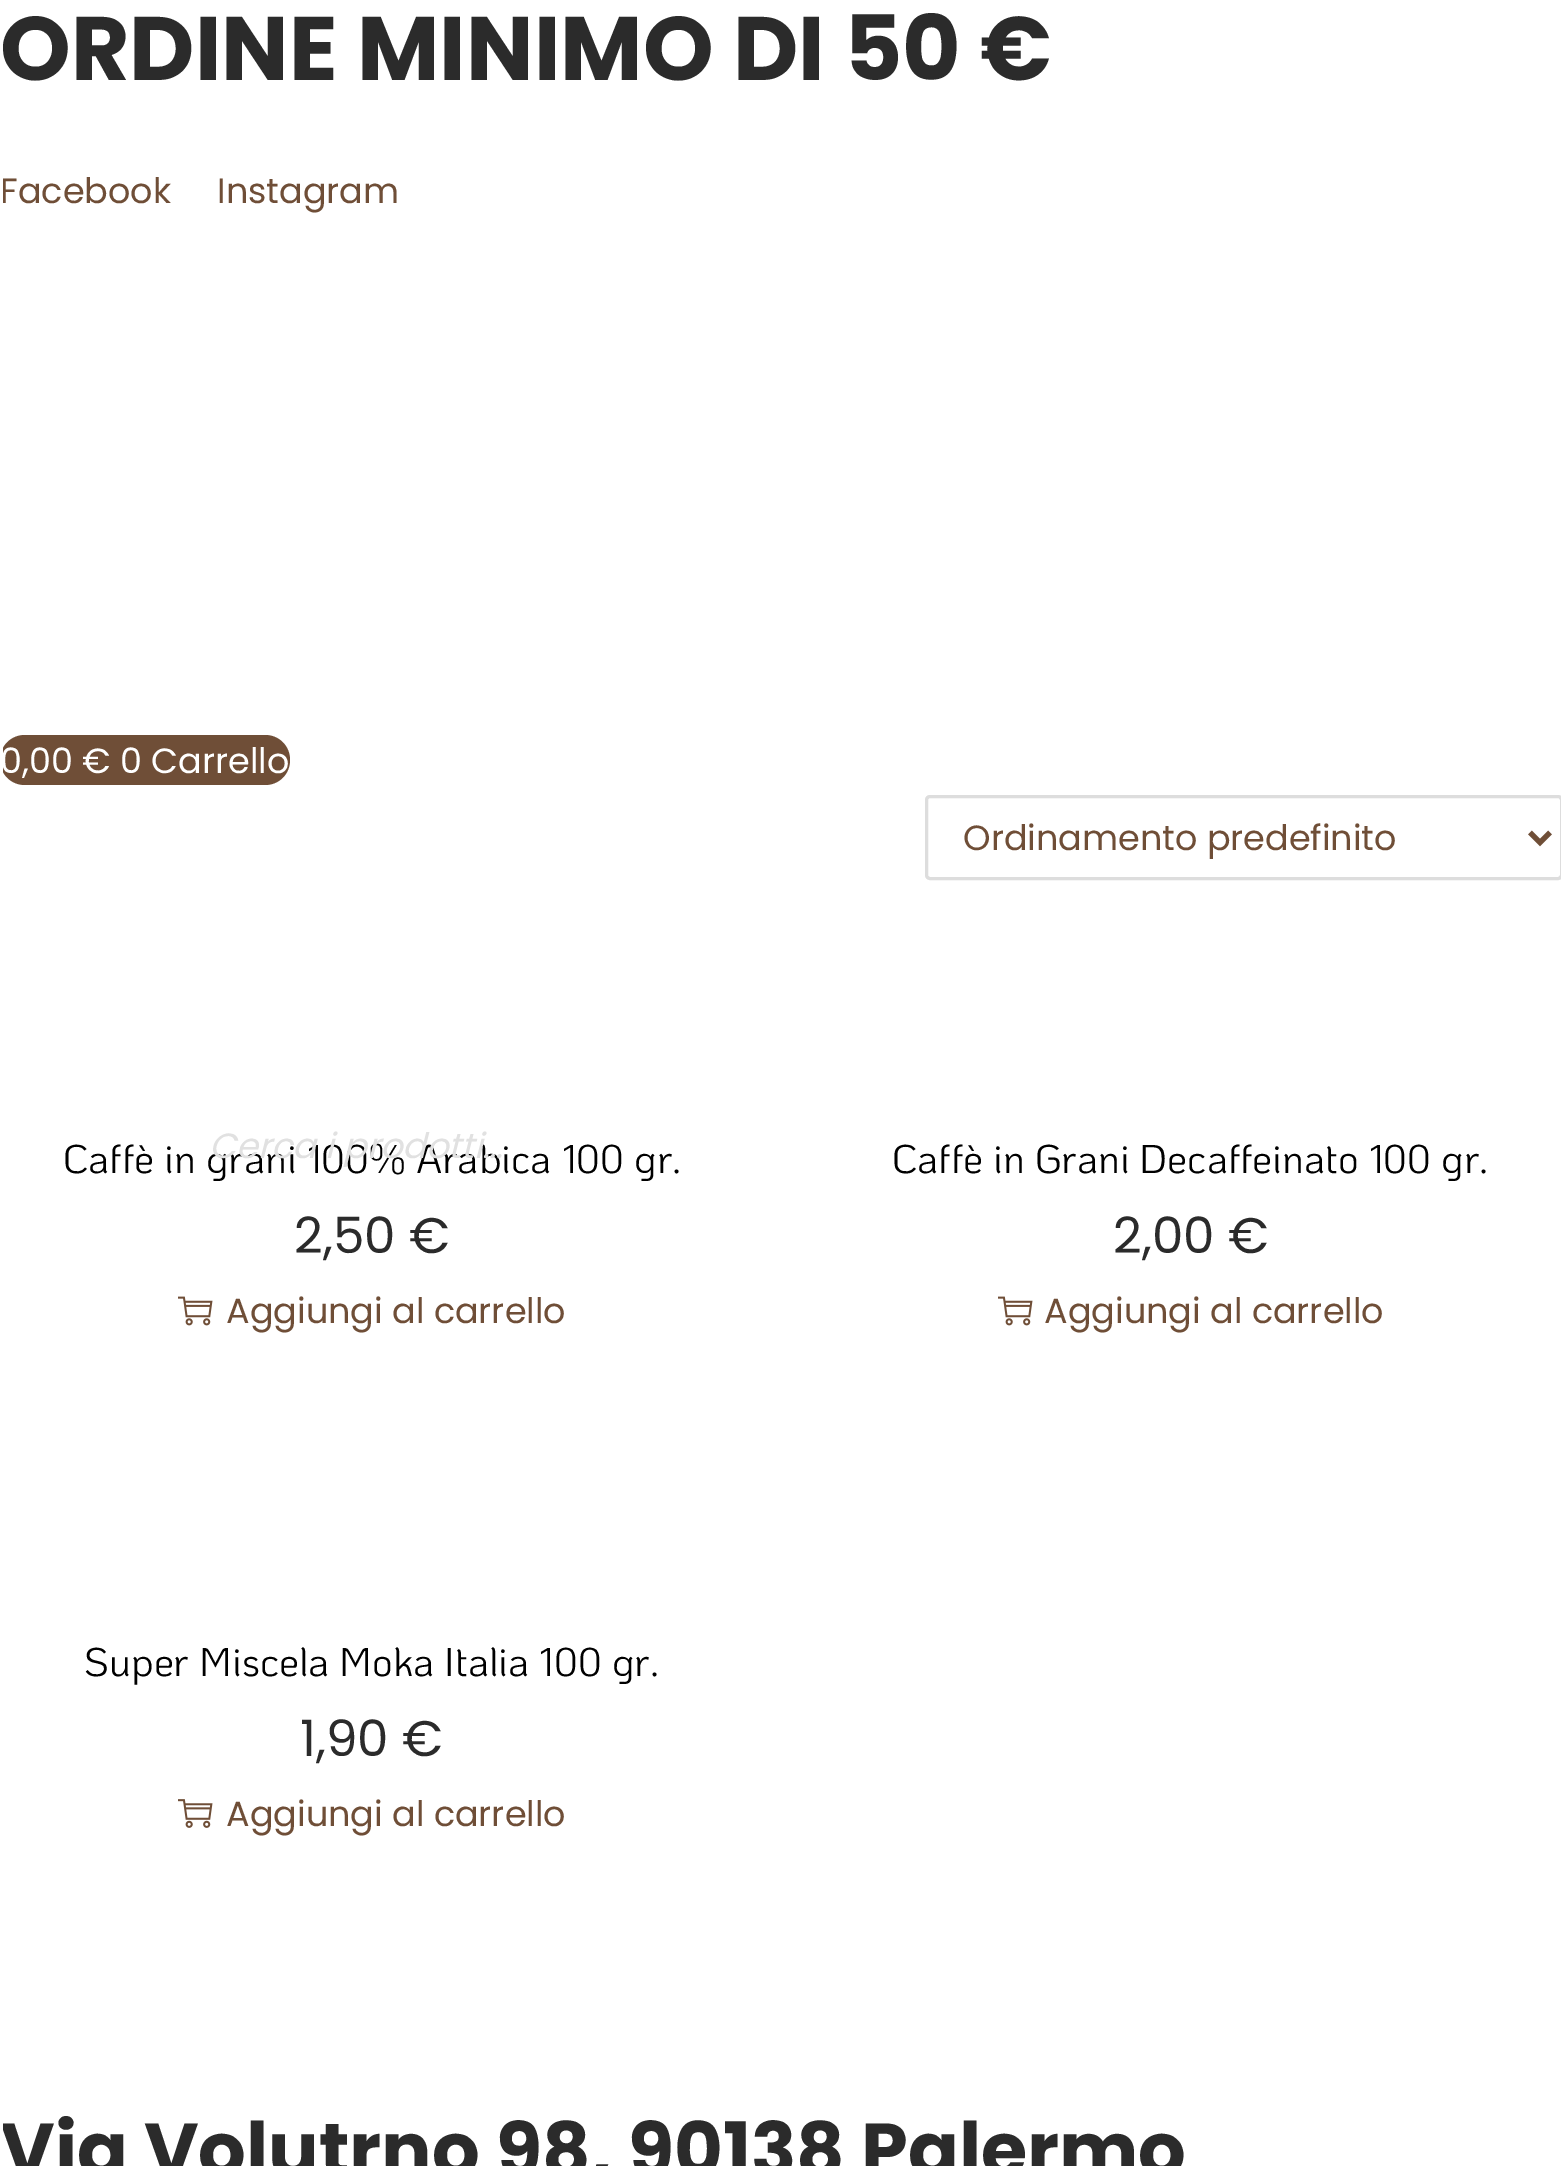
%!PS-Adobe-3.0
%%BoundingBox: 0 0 1561 2166
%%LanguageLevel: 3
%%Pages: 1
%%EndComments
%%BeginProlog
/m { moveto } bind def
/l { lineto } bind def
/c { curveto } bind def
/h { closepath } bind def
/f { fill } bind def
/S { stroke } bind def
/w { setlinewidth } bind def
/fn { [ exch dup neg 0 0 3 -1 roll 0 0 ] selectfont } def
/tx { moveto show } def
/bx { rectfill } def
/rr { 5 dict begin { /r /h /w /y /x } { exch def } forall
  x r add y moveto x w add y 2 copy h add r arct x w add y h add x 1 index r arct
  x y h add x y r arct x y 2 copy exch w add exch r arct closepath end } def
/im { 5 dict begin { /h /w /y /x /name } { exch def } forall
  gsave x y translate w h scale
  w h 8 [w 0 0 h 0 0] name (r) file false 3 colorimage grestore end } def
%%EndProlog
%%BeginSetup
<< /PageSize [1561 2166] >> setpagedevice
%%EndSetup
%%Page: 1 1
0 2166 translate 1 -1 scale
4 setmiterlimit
1 setgray
0 0 1561 2166 bx
/Poppins-Bold 90 fn
0.169 setgray
(ORDINE MINIMO DI 50 €) 0 80 tx
/Poppins-Regular 35 fn
0.435 0.306 0.216 setrgbcolor
(Facebook) 0 203 tx
(Instagram) 217 203 tx
25 735 m 83 735 l 83 785 l 25 785 l 11 785 0 774 0 760 c 0 746 11 735 25 735 c h f
83 735 70 50 bx
153 735 m 265 735 l 279 735 290 746 290 760 c 290 774 279 785 265 785 c 153 785 l h f
1 setgray
(0,00 € 0 Carrello) 0 773 tx
0.867 setgray
3 w
926.5 796.5 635 82 3.5 rr S
0.435 0.306 0.216 setrgbcolor
5 w
1530 832.5 m 1540 842.5 l 1550 832.5 l S
(Ordinamento predefinito) 963 850 tx
/KoHo-Regular 40 fn
0 setgray
(Caffè in grani 100% Arabica 100 gr.) 63 1173 tx
/Poppins-Regular 50 fn
0.169 setgray
(2,50 €) 294 1253 tx
(image0.raw) 178 1296 35 30 im
/Poppins-Regular 35 fn
0.435 0.306 0.216 setrgbcolor
(Aggiungi al carrello) 226 1323 tx
/KoHo-Regular 40 fn
0 setgray
(Caffè in Grani Decaffeinato 100 gr.) 892 1173 tx
/Poppins-Regular 50 fn
0.169 setgray
(2,00 €) 1113 1253 tx
(image0.raw) 998 1296 35 30 im
/Poppins-Regular 35 fn
0.435 0.306 0.216 setrgbcolor
(Aggiungi al carrello) 1044 1323 tx
/KoHo-Regular 40 fn
0 setgray
(Super Miscela Moka Italia 100 gr.) 84 1676 tx
/Poppins-Regular 50 fn
0.169 setgray
(1,90 €) 300 1756 tx
(image1.raw) 178 1799 35 29 im
/Poppins-Regular 35 fn
0.435 0.306 0.216 setrgbcolor
(Aggiungi al carrello) 226 1826 tx
/Poppins-Bold 75 fn
0.169 setgray
(Via Volutrno 98, 90138 Palermo) 0 2176 tx
1 setgray
0 48 3 2082 bx
/Poppins-Italic 35 fn
0.882 setgray
(Cerca i prodotti…) 209 1158 tx
showpage
%%EOF
